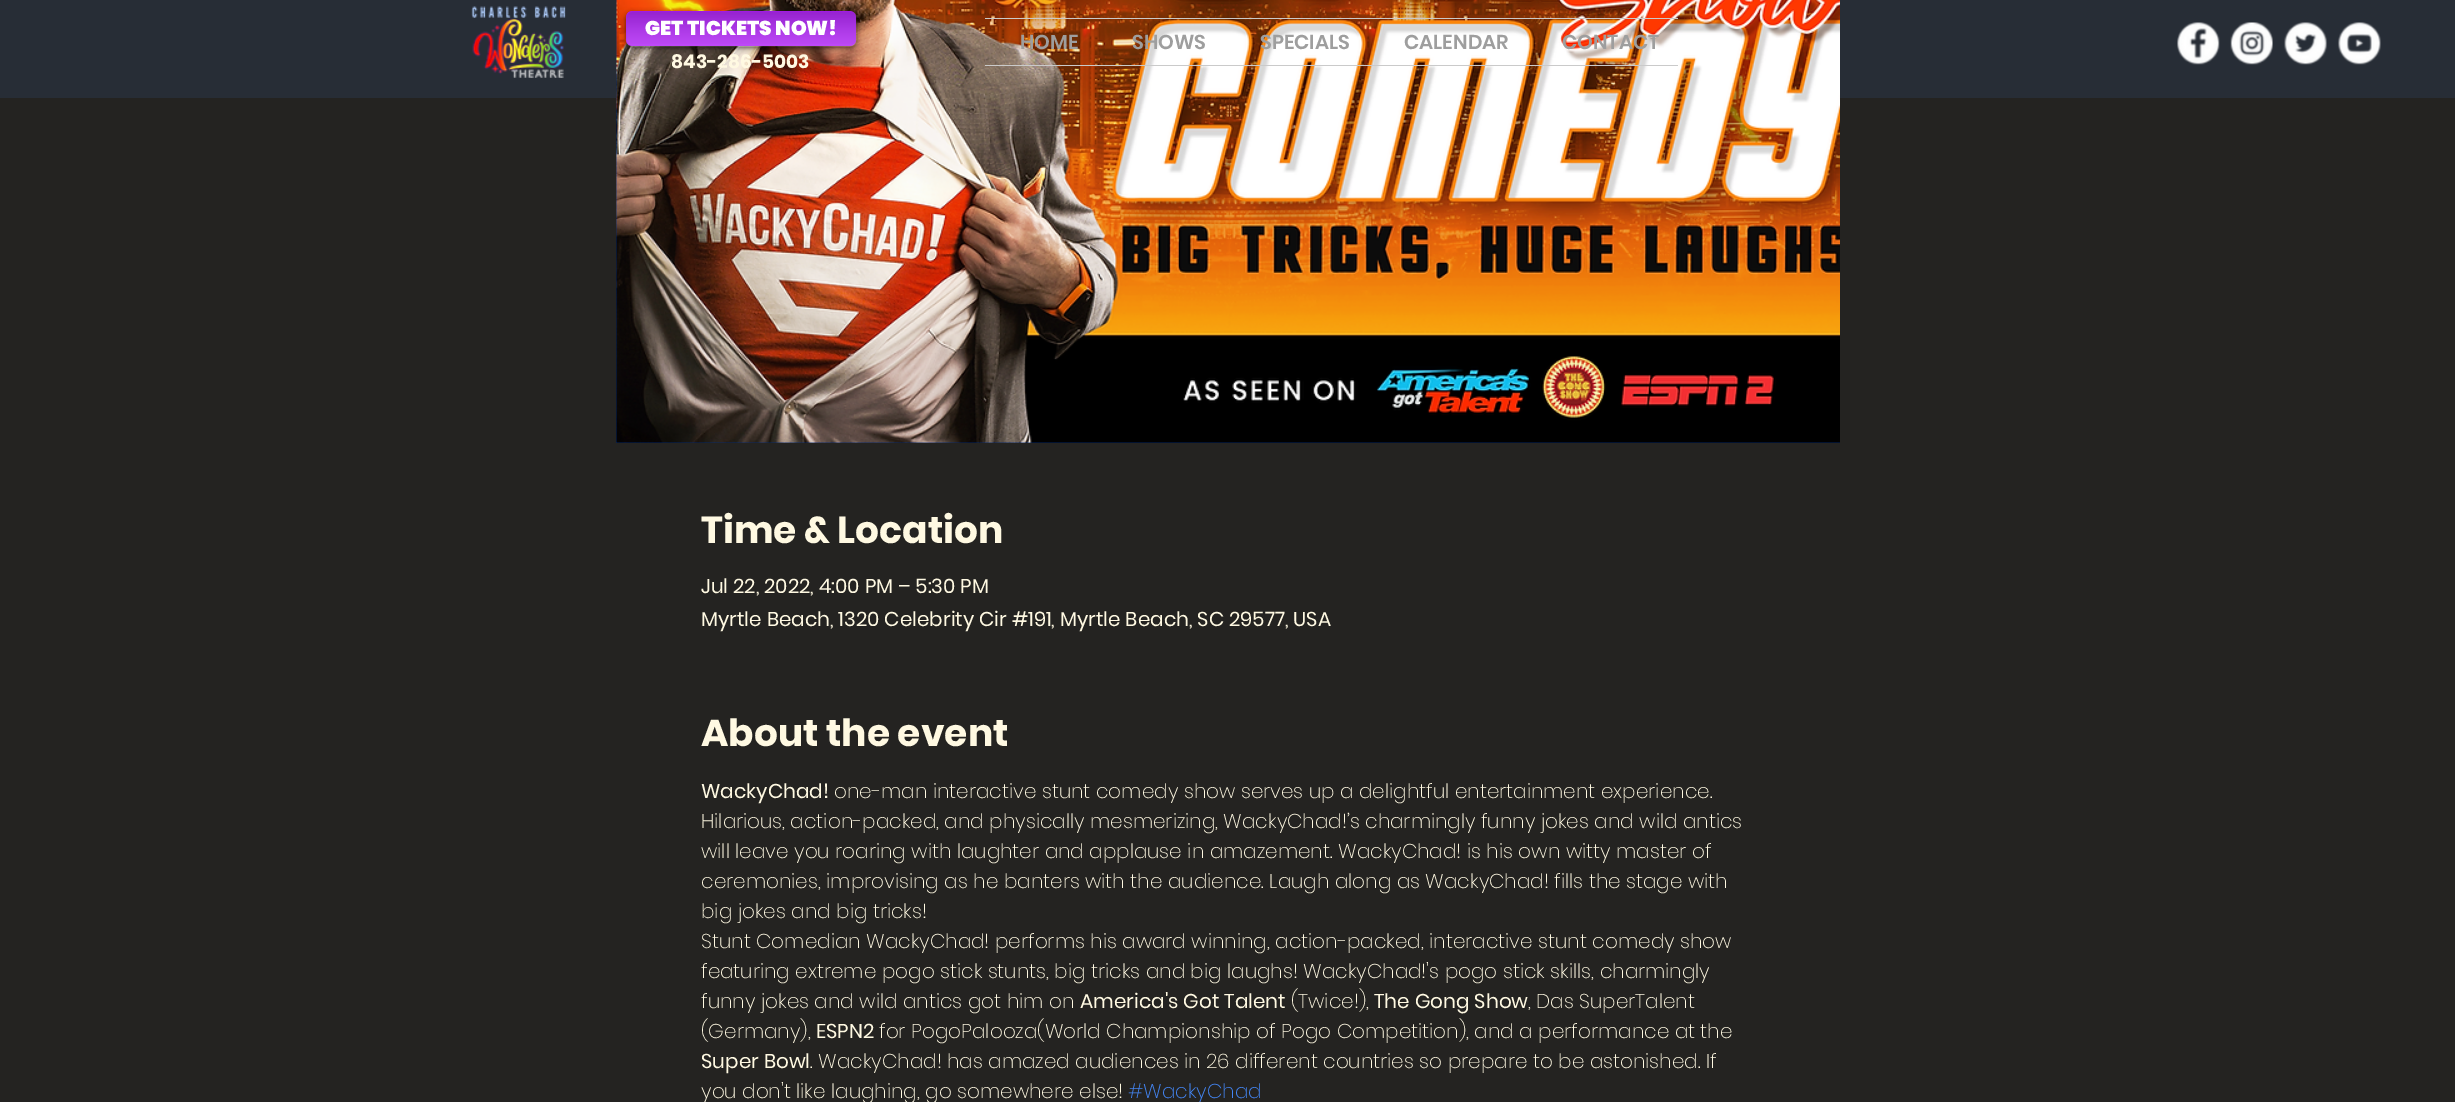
%!PS-Adobe-3.0
%%BoundingBox: 0 0 2455 1102
%%LanguageLevel: 3
%%Pages: 1
%%EndComments
%%BeginProlog
/f { fill } bind def
/fn { [ exch dup neg 0 0 3 -1 roll 0 0 ] selectfont } def
/tx { moveto show } def
/bx { rectfill } def
/al { dup .setfillconstantalpha .setstrokeconstantalpha } def
/rr { 5 dict begin { /r /h /w /y /x } { exch def } forall
  x r add y moveto x w add y 2 copy h add r arct x w add y h add x 1 index r arct
  x y h add x y r arct x y 2 copy exch w add exch r arct closepath end } def
/sh { 12 dict begin { /a /b /q /h /w /y /x } { exch def } forall gsave /was 0 def
  9 -2 -9 { dup b mul 4 div /e exch def 1 sub .425 mul 2.718 exch exp 1 add a .99 .min exch div /now exch def
    1 1 now sub 1 was sub div sub al /was now def
    w h .min e 2 mul add 0 gt { x e sub y e sub w e 2 mul add h e 2 mul add
      q e add b .6 mul add w h .min 2 div e add .min 0 .max rr fill } if } for grestore end } def
/im { 5 dict begin { /h /w /y /x /name } { exch def } forall
  gsave x y translate w h scale
  w h 8 [w 0 0 h 0 0] name (r) file false 3 colorimage grestore end } def
%%EndProlog
%%BeginSetup
<< /PageSize [2455 1102] /PageUsesTransparency true >> setpagedevice
%%EndSetup
%%Page: 1 1
0 .pushpdf14devicefilter
0 1102 translate 1 -1 scale
4 setmiterlimit
0.141 0.137 0.129 setrgbcolor
0 0 2455 1102 bx
0.153 0.176 0.212 setrgbcolor
0 0 2455 98 bx
(image0.raw) 471 6 95 72 im
0.02 0.165 0.431 setrgbcolor
616 0 1224 443 bx
(image7.raw) 616 0 1224 443 im
0 setgray
626 13 230 35 6 2.5 0.6 sh
0.682 0.114 0.965 setrgbcolor
626 11 230 35 6 rr f
(image1.raw) 626 11 230 32 im
(image2.raw) 626 12 231 35 im
/Poppins-Black 20 fn
1 setgray
(GET TICKETS NOW!) 645 35 tx
0.792 setgray
985 18 693 1 bx
985 65 693 1 bx
/Poppins-SemiBold 20 fn
0.62 setgray
(HOME) 1020 49 tx
(SHOWS) 1132 49 tx
(SPECIALS) 1260 49 tx
(CALENDAR) 1404 49 tx
(CONTACT) 1562 49 tx
/Poppins-Bold 18.75 fn
1 0.976 0.886 setrgbcolor
(843-286-5003) 671 68 tx
(image3.raw) 2177 22 43 43 im
(image4.raw) 2230 22 43 43 im
(image5.raw) 2284 22 43 43 im
(image6.raw) 2338 22 43 43 im
/Poppins-Bold 37.5 fn
(Time & Location) 701 543 tx
/Poppins-Regular 20 fn
(Jul 22, 2022, 4:00 PM – 5:30 PM) 701 593 tx
(Myrtle Beach, 1320 Celebrity Cir #191, Myrtle Beach, SC 29577, USA) 701 626 tx
/Poppins-Bold 37.5 fn
(About the event) 701 746 tx
/Poppins-Regular 20 fn
(WackyChad!) 701 798 tx
/Poppins-ExtraLight 20 fn
(one-man interactive stunt comedy show serves up a delightful entertainment experience.) 834 798 tx
(Hilarious, action-packed, and physically mesmerizing, WackyChad!’s charmingly funny jokes and wild antics) 701 828 tx
(will leave you roaring with laughter and applause in amazement. WackyChad! is his own witty master of) 701 858 tx
(ceremonies, improvising as he banters with the audience. Laugh along as WackyChad! fills the stage with) 701 888 tx
(big jokes and big tricks!) 701 918 tx
(Stunt Comedian WackyChad! performs his award winning, action-packed, interactive stunt comedy show) 701 948 tx
(featuring extreme pogo stick stunts, big tricks and big laughs! WackyChad!'s pogo stick skills, charmingly) 701 978 tx
(funny jokes and wild antics got him on) 701 1008 tx
/Poppins-Regular 20 fn
(America's Got Talent) 1080 1008 tx
/Poppins-ExtraLight 20 fn
(\(Twice!\),) 1291 1008 tx
/Poppins-Regular 20 fn
(The Gong Show) 1374 1008 tx
/Poppins-ExtraLight 20 fn
(, Das SuperTalent) 1528 1008 tx
(\(Germany\),) 701 1038 tx
/Poppins-Regular 20 fn
(ESPN2) 816 1038 tx
/Poppins-ExtraLight 20 fn
(for PogoPalooza\(World Championship of Pogo Competition\), and a performance at the) 879 1038 tx
/Poppins-Regular 20 fn
(Super Bowl) 701 1068 tx
/Poppins-ExtraLight 20 fn
(. WackyChad! has amazed audiences in 26 different countries so prepare to be astonished. If) 810 1068 tx
(you don't like laughing, go somewhere else!) 701 1098 tx
0.263 0.525 0.965 setrgbcolor
(#WackyChad) 1128 1098 tx
.poppdf14devicefilter showpage
%%EOF
